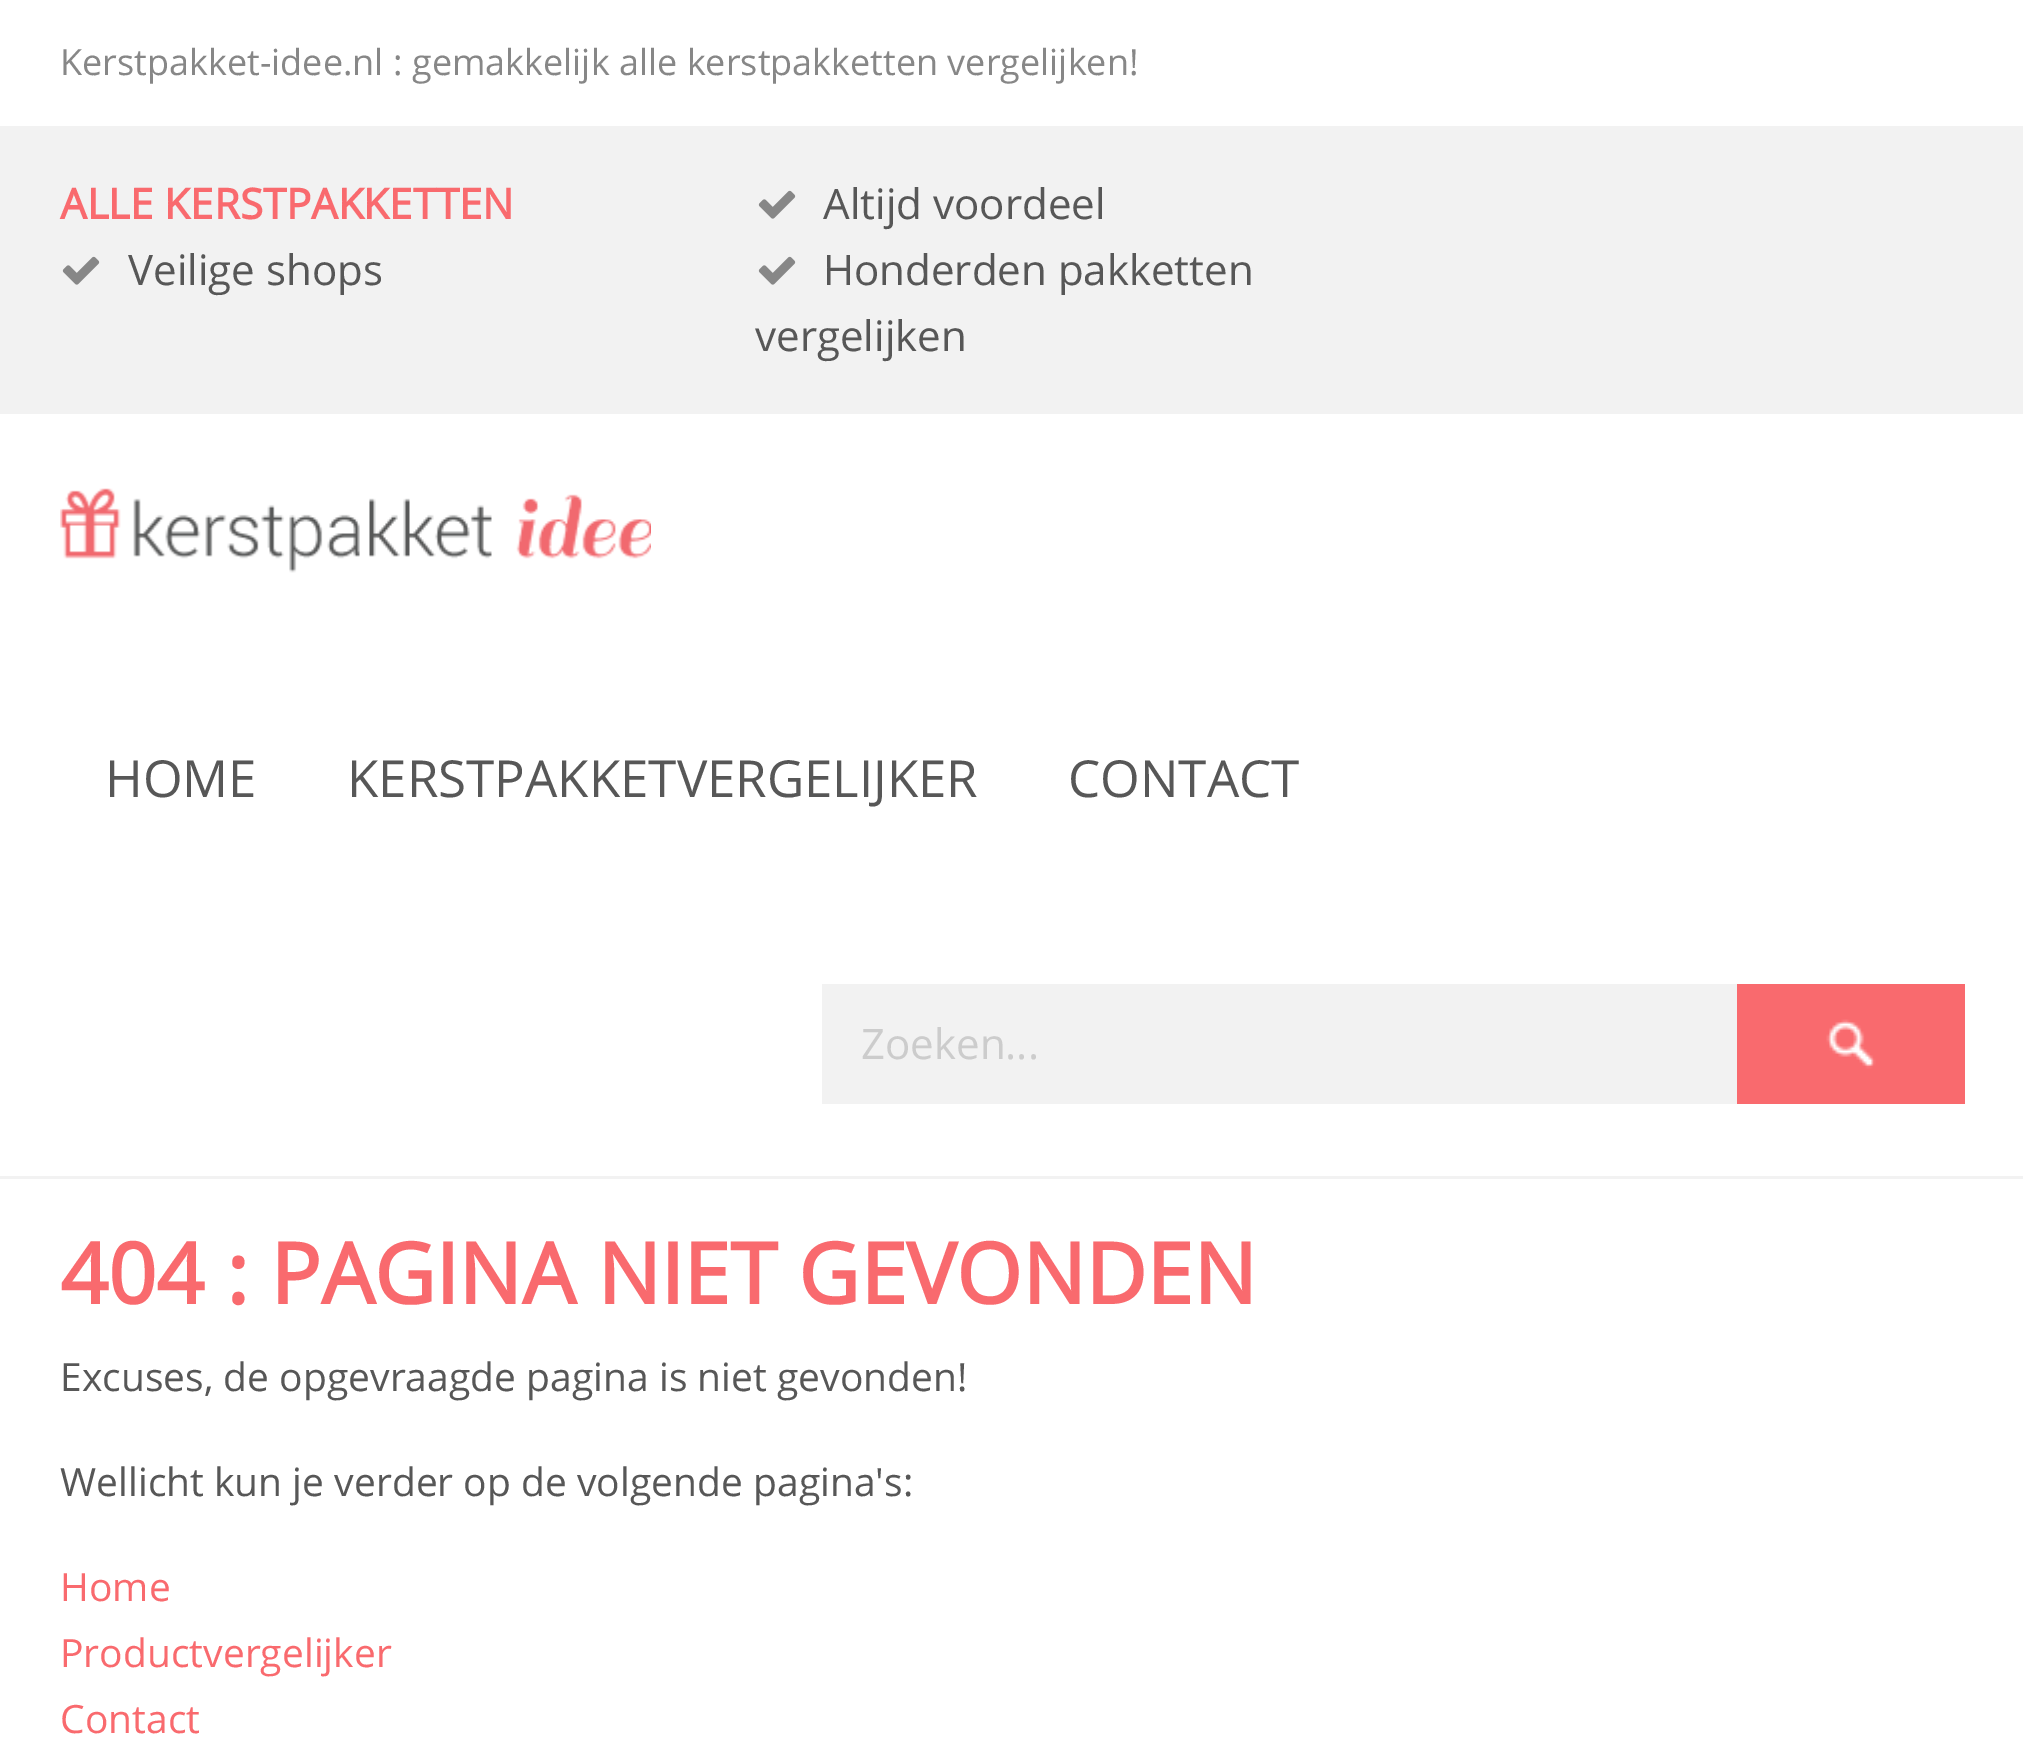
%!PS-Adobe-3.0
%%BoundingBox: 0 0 2023 1751
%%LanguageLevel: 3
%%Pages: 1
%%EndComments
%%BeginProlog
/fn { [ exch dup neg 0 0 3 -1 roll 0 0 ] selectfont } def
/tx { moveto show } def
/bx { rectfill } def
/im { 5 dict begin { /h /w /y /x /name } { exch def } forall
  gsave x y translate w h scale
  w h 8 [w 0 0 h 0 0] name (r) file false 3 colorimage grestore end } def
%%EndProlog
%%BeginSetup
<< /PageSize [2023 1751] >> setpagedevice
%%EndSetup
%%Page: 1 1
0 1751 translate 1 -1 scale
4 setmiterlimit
1 setgray
0 0 2023 1751 bx
/OpenSans-Regular 36 fn
0.529 setgray
(Kerstpakket-idee.nl : gemakkelijk alle kerstpakketten vergelijken!) 60 75 tx
0.949 setgray
0 126 2023 288 bx
/OpenSans-Bold 42 fn
0.976 0.416 0.431 setrgbcolor
(ALLE KERSTPAKKETTEN) 60 219 tx
(image0.raw) 758 190 38 29 im
/OpenSans-Regular 42 fn
0.341 setgray
(Altijd voordeel) 823 219 tx
(image0.raw) 62 256 38 29 im
(Veilige shops) 128 285 tx
(image0.raw) 758 256 38 29 im
(Honderden pakketten) 823 285 tx
(vergelijken) 755 351 tx
(image1.raw) 60 488 591 85 im
/OpenSans-Regular 51 fn
(HOME) 105 797 tx
(KERSTPAKKETVERGELIJKER) 347 797 tx
(CONTACT) 1068 797 tx
0.949 setgray
822 984 915 120 bx
/OpenSans-Regular 42 fn
0.8 setgray
(Zoeken...) 861 1059 tx
0.976 0.416 0.431 setrgbcolor
1737 984 228 120 bx
(image2.raw) 1826 1019 50 50 im
0.949 setgray
0 1176 2023 3 bx
/OpenSans-Bold 84 fn
0.976 0.416 0.431 setrgbcolor
(404 : PAGINA NIET GEVONDEN) 60 1304 tx
/OpenSans-Regular 39 fn
0.341 setgray
(Excuses, de opgevraagde pagina is niet gevonden!) 60 1391 tx
(Wellicht kun je verder op de volgende pagina's:) 60 1496 tx
0.976 0.416 0.431 setrgbcolor
(Home) 60 1601 tx
(Productvergelijker) 60 1667 tx
(Contact) 60 1733 tx
showpage
%%EOF
